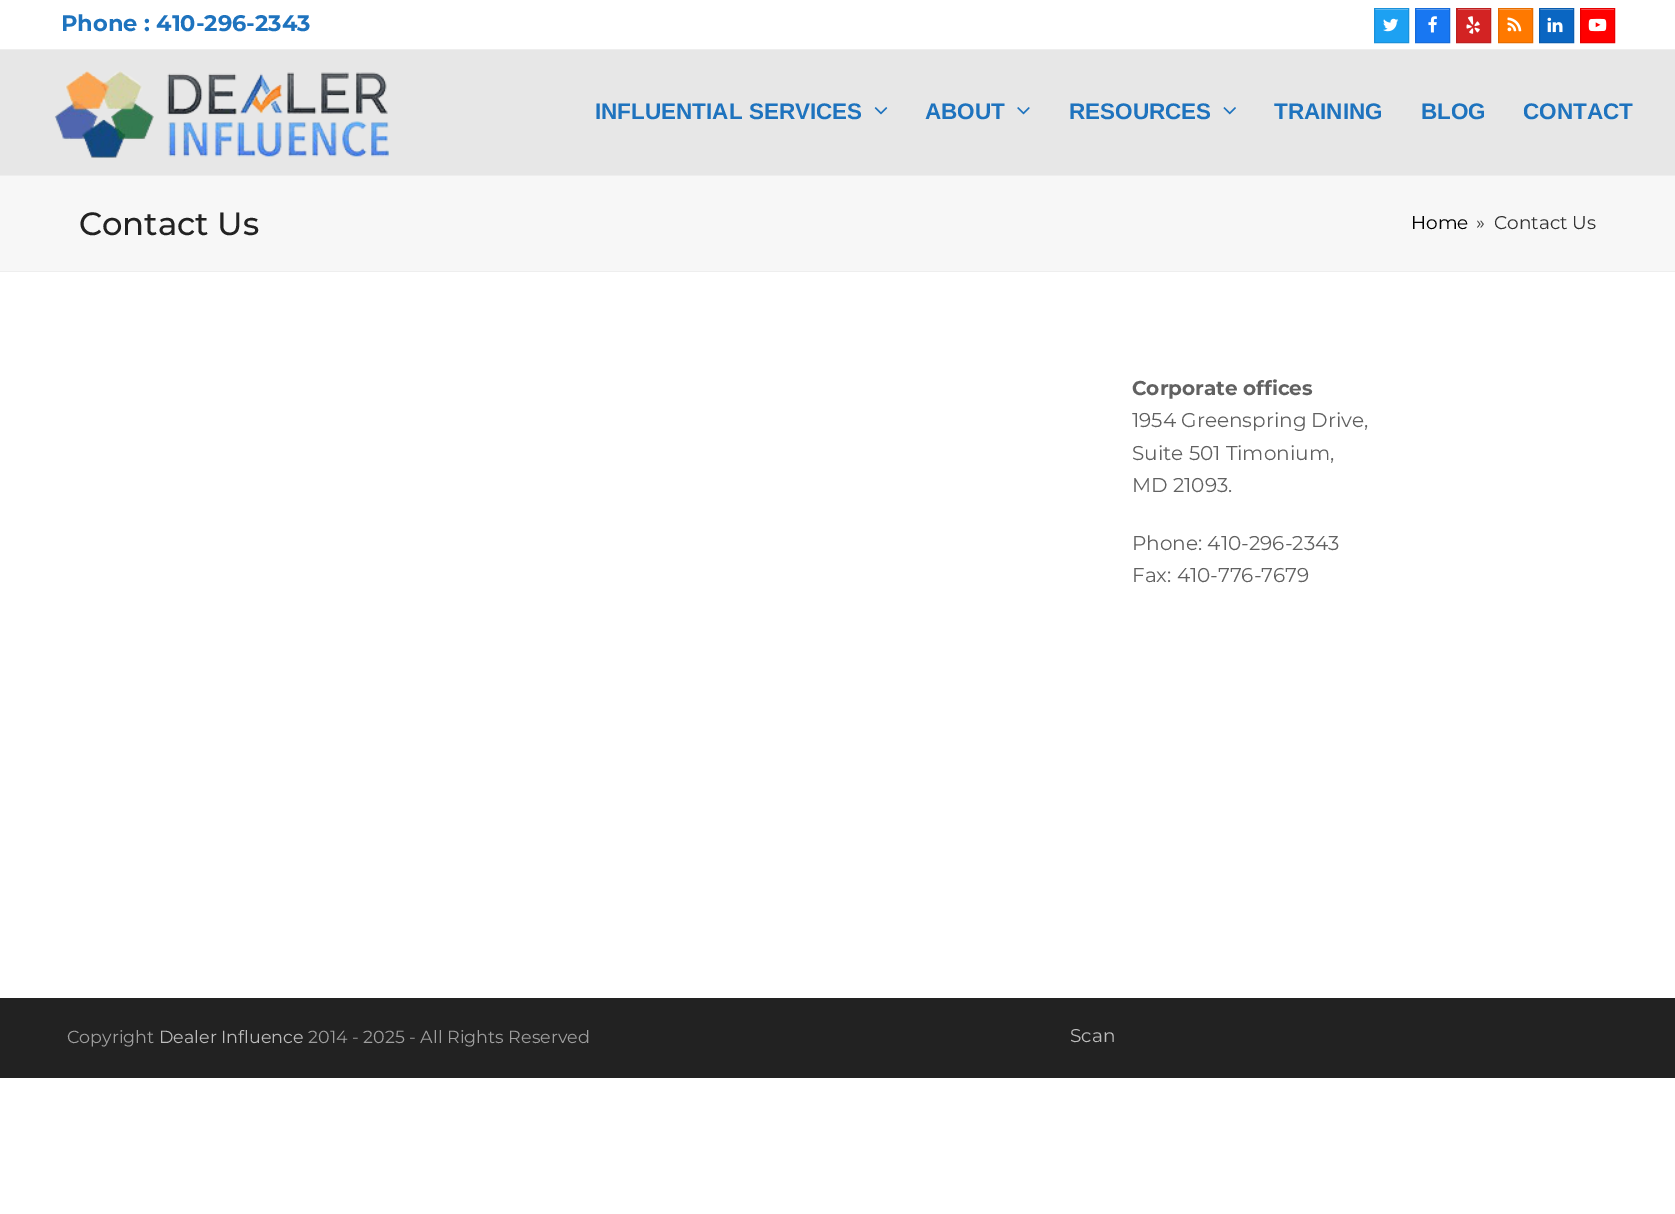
%!PS-Adobe-3.0
%%BoundingBox: 0 0 1675 1214
%%LanguageLevel: 3
%%Pages: 1
%%EndComments
%%BeginProlog
/fn { [ exch dup neg 0 0 3 -1 roll 0 0 ] selectfont } def
/tx { moveto show } def
/bx { rectfill } def
/im { 5 dict begin { /h /w /y /x /name } { exch def } forall
  gsave x y translate w h scale
  w h 8 [w 0 0 h 0 0] name (r) file false 3 colorimage grestore end } def
%%EndProlog
%%BeginSetup
<< /PageSize [1675 1214] >> setpagedevice
%%EndSetup
%%Page: 1 1
0 1214 translate 1 -1 scale
4 setmiterlimit
1 setgray
0 0 1675 1214 bx
0.933 setgray
0 49 1675 1 bx
/Montserrat-Bold 22.5 fn
0.118 0.451 0.745 setrgbcolor
(Phone : 410-296-2343) 61 31 tx
0.114 0.631 0.949 setrgbcolor
1375 10 33 32 bx
0.467 0.78 0.969 setrgbcolor
1375 9 33 1 bx
0.102 0.569 0.855 setrgbcolor
1374.5 8.5 34 34 rectstroke
(image0.raw) 1383 18 16 14 im
0.094 0.467 0.949 setrgbcolor
1416 10 33 32 bx
0.455 0.678 0.969 setrgbcolor
1416 9 33 1 bx
0.086 0.42 0.855 setrgbcolor
1415.5 8.5 34 34 rectstroke
(image1.raw) 1428 16 9 17 im
0.827 0.137 0.137 setrgbcolor
1457 9 33 33 bx
0.898 0.482 0.482 setrgbcolor
1458 9 32 1 bx
0.745 0.125 0.125 setrgbcolor
1456.5 8.5 34 34 rectstroke
(image2.raw) 1466 16 14 18 im
1 0.475 0 setrgbcolor
1499 9 33 33 bx
1 0.686 0.4 setrgbcolor
1499 9 32 1 bx
0.902 0.427 0 setrgbcolor
1498.5 8.5 34 34 rectstroke
(image3.raw) 1507 17 15 15 im
0.039 0.4 0.761 setrgbcolor
1540 10 33 32 bx
0.424 0.639 0.855 setrgbcolor
1540 9 33 1 bx
0.035 0.361 0.686 setrgbcolor
1539.5 8.5 34 34 rectstroke
(image4.raw) 1547 17 16 16 im
1 0 0 setrgbcolor
1581 10 33 32 bx
1 0.4 0.4 setrgbcolor
1581 9 33 1 bx
0.902 0 0 setrgbcolor
1580.5 8.5 34 34 rectstroke
(image5.raw) 1588 18 19 14 im
0.906 setgray
0 50 1675 125 bx
(image6.raw) 54 71 335 87 im
/LiberationSans-Bold 22.5 fn
0.118 0.451 0.745 setrgbcolor
(INFLUENTIAL SERVICES) 595 119 tx
(image7.raw) 874 107 14 8 im
(ABOUT) 925 119 tx
(image8.raw) 1017 107 13 8 im
(RESOURCES) 1069 119 tx
(image9.raw) 1223 107 13 8 im
(TRAINING) 1274 119 tx
(BLOG) 1421 119 tx
(CONTACT) 1523 119 tx
0.969 setgray
0 176 1675 95 bx
0.933 setgray
0 175 1675 1 bx
0 271 1675 1 bx
/Montserrat-Medium 32.25 fn
0.133 setgray
(Contact Us) 79 235 tx
/Montserrat-Regular 18.5 fn
0 setgray
(Home) 1411 229 tx
0.2 setgray
(») 1476 229 tx
(Contact Us) 1494 229 tx
/Montserrat-Bold 20 fn
0.38 setgray
(Corporate offices) 1132 395 tx
/Montserrat-Regular 20 fn
(1954 Greenspring Drive,) 1132 427 tx
(Suite 501 Timonium,) 1132 460 tx
(MD 21093.) 1132 492 tx
(Phone: 410-296-2343) 1132 550 tx
(Fax: 410-776-7679) 1132 582 tx
0.133 setgray
0 998 1675 80 bx
/Montserrat-Regular 17.5 fn
0.62 setgray
(Copyright) 67 1043 tx
0.741 setgray
(Dealer Influence) 159 1043 tx
0.62 setgray
(2014 - 2025 - All Rights Reserved) 308 1043 tx
/Montserrat-Regular 18.5 fn
0.741 setgray
(Scan) 1070 1042 tx
showpage
%%EOF
